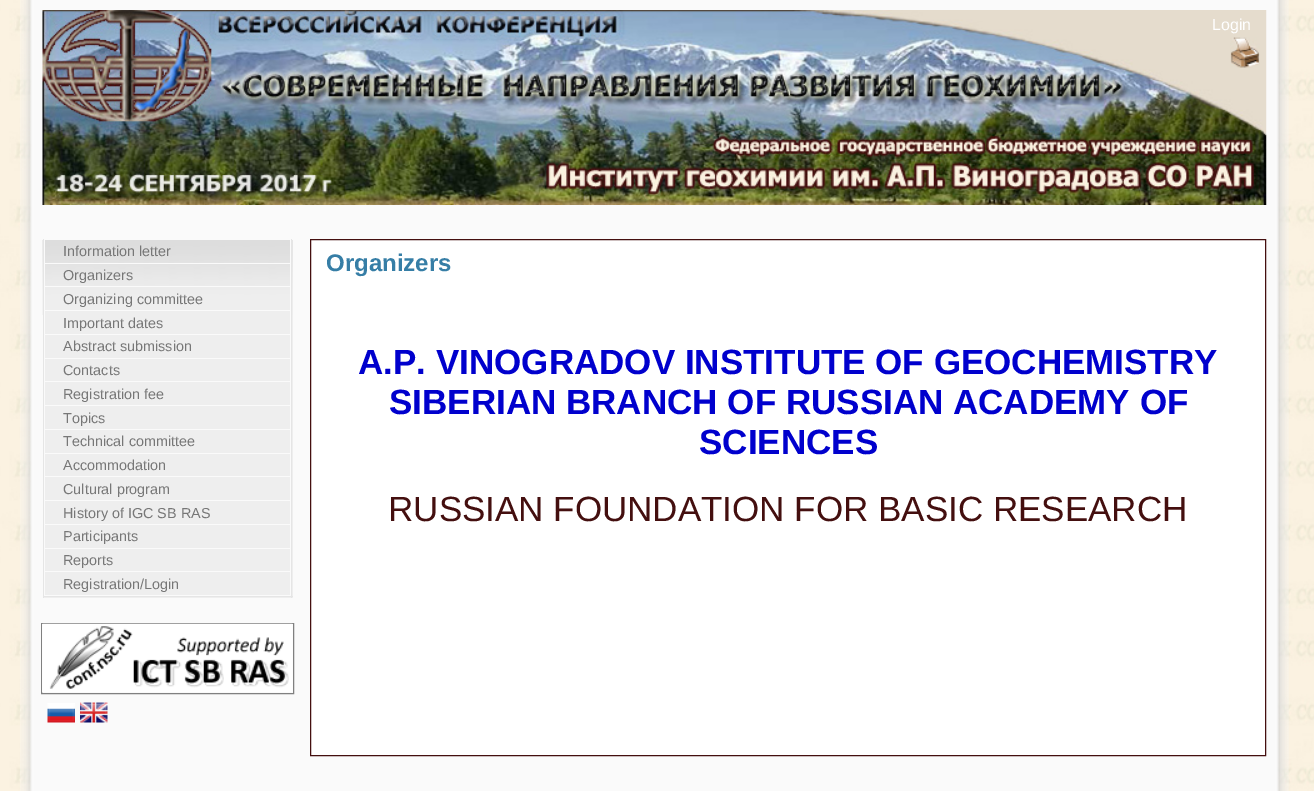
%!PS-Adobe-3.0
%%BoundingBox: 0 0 1314 791
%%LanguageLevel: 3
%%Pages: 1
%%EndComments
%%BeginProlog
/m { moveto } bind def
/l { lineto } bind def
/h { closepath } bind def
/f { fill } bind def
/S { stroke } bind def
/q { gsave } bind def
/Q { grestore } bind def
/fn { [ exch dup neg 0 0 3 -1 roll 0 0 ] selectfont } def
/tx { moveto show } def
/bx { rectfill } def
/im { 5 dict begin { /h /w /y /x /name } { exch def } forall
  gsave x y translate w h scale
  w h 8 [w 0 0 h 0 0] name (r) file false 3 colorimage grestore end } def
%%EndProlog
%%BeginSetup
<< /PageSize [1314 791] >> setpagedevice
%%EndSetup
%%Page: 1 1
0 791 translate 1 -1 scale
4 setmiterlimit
1 setgray
0 0 1314 791 bx
(image0.raw) 0 0 1314 791 im
(image1.raw) 20 0 1269 791 im
(image2.raw) 42 10 1225 195 im
/LiberationSans-Regular 16 fn
(Login) 1212 30 tx
(image3.raw) 1230 37 30 31 im
0.933 setgray
44 240 249 358 bx
(image4.raw) 42 240 251 75 im
0.898 setgray
291 239 1 359 bx
43 596 250 1 bx
43 239 1 359 bx
0.98 setgray
290 240 1 356 bx
44 263 247 1 bx
44 240 1 24 bx
/LiberationSans-Regular 14.4 fn
0.467 setgray
(Information letter) 63 256 tx
0.98 setgray
44 286 247 1 bx
44 264 1 24 bx
0.467 setgray
(Organizers) 63 280 tx
0.98 setgray
44 310 247 1 bx
44 288 1 23 bx
0.467 setgray
(Organizing committee) 63 304 tx
0.98 setgray
44 334 247 1 bx
44 311 1 24 bx
0.467 setgray
(Important dates) 63 328 tx
0.98 setgray
44 358 247 1 bx
44 335 1 24 bx
0.467 setgray
(Abstract submission) 63 351 tx
0.98 setgray
44 381 247 1 bx
44 359 1 24 bx
0.467 setgray
(Contacts) 63 375 tx
0.98 setgray
44 405 247 1 bx
44 383 1 23 bx
0.467 setgray
(Registration fee) 63 399 tx
0.98 setgray
44 429 247 1 bx
44 406 1 24 bx
0.467 setgray
(Topics) 63 423 tx
0.98 setgray
44 453 247 1 bx
44 430 1 24 bx
0.467 setgray
(Technical committee) 63 446 tx
0.98 setgray
44 476 247 1 bx
44 454 1 24 bx
0.467 setgray
(Accommodation) 63 470 tx
0.98 setgray
44 500 247 1 bx
44 478 1 23 bx
0.467 setgray
(Cultural program) 63 494 tx
0.98 setgray
44 524 247 1 bx
44 501 1 24 bx
0.467 setgray
(History of IGC SB RAS) 63 518 tx
0.98 setgray
44 548 247 1 bx
44 525 1 24 bx
0.467 setgray
(Participants) 63 541 tx
0.98 setgray
44 571 247 1 bx
44 549 1 24 bx
0.467 setgray
(Reports) 63 565 tx
0.98 setgray
44 595 247 1 bx
44 573 1 23 bx
0.467 setgray
(Registration/Login) 63 589 tx
0.502 setgray
41.5 623.5 252 70 rectstroke
(image5.raw) 42 623 251 69 im
(image6.raw) 47 703 28 20 im
(image7.raw) 80 702 28 21 im
1 setgray
310.5 239.5 m 1265.5 239.5 l 1265.5 755.5 l 310.5 755.5 l h q f Q
0.267 0.059 0.059 setrgbcolor
S
/LiberationSans-Bold 24 fn
0.212 0.494 0.651 setrgbcolor
(Organizers) 326 271 tx
/LiberationSans-Bold 35 fn
0 0 0.804 setrgbcolor
(A.P. VINOGRADOV INSTITUTE OF GEOCHEMISTRY) 358 374 tx
(SIBERIAN BRANCH OF RUSSIAN ACADEMY OF) 389 414 tx
(SCIENCES) 699 454 tx
/LiberationSans-Regular 35 fn
0.267 0.059 0.059 setrgbcolor
(RUSSIAN FOUNDATION FOR BASIC RESEARCH) 388 521 tx
showpage
%%EOF
